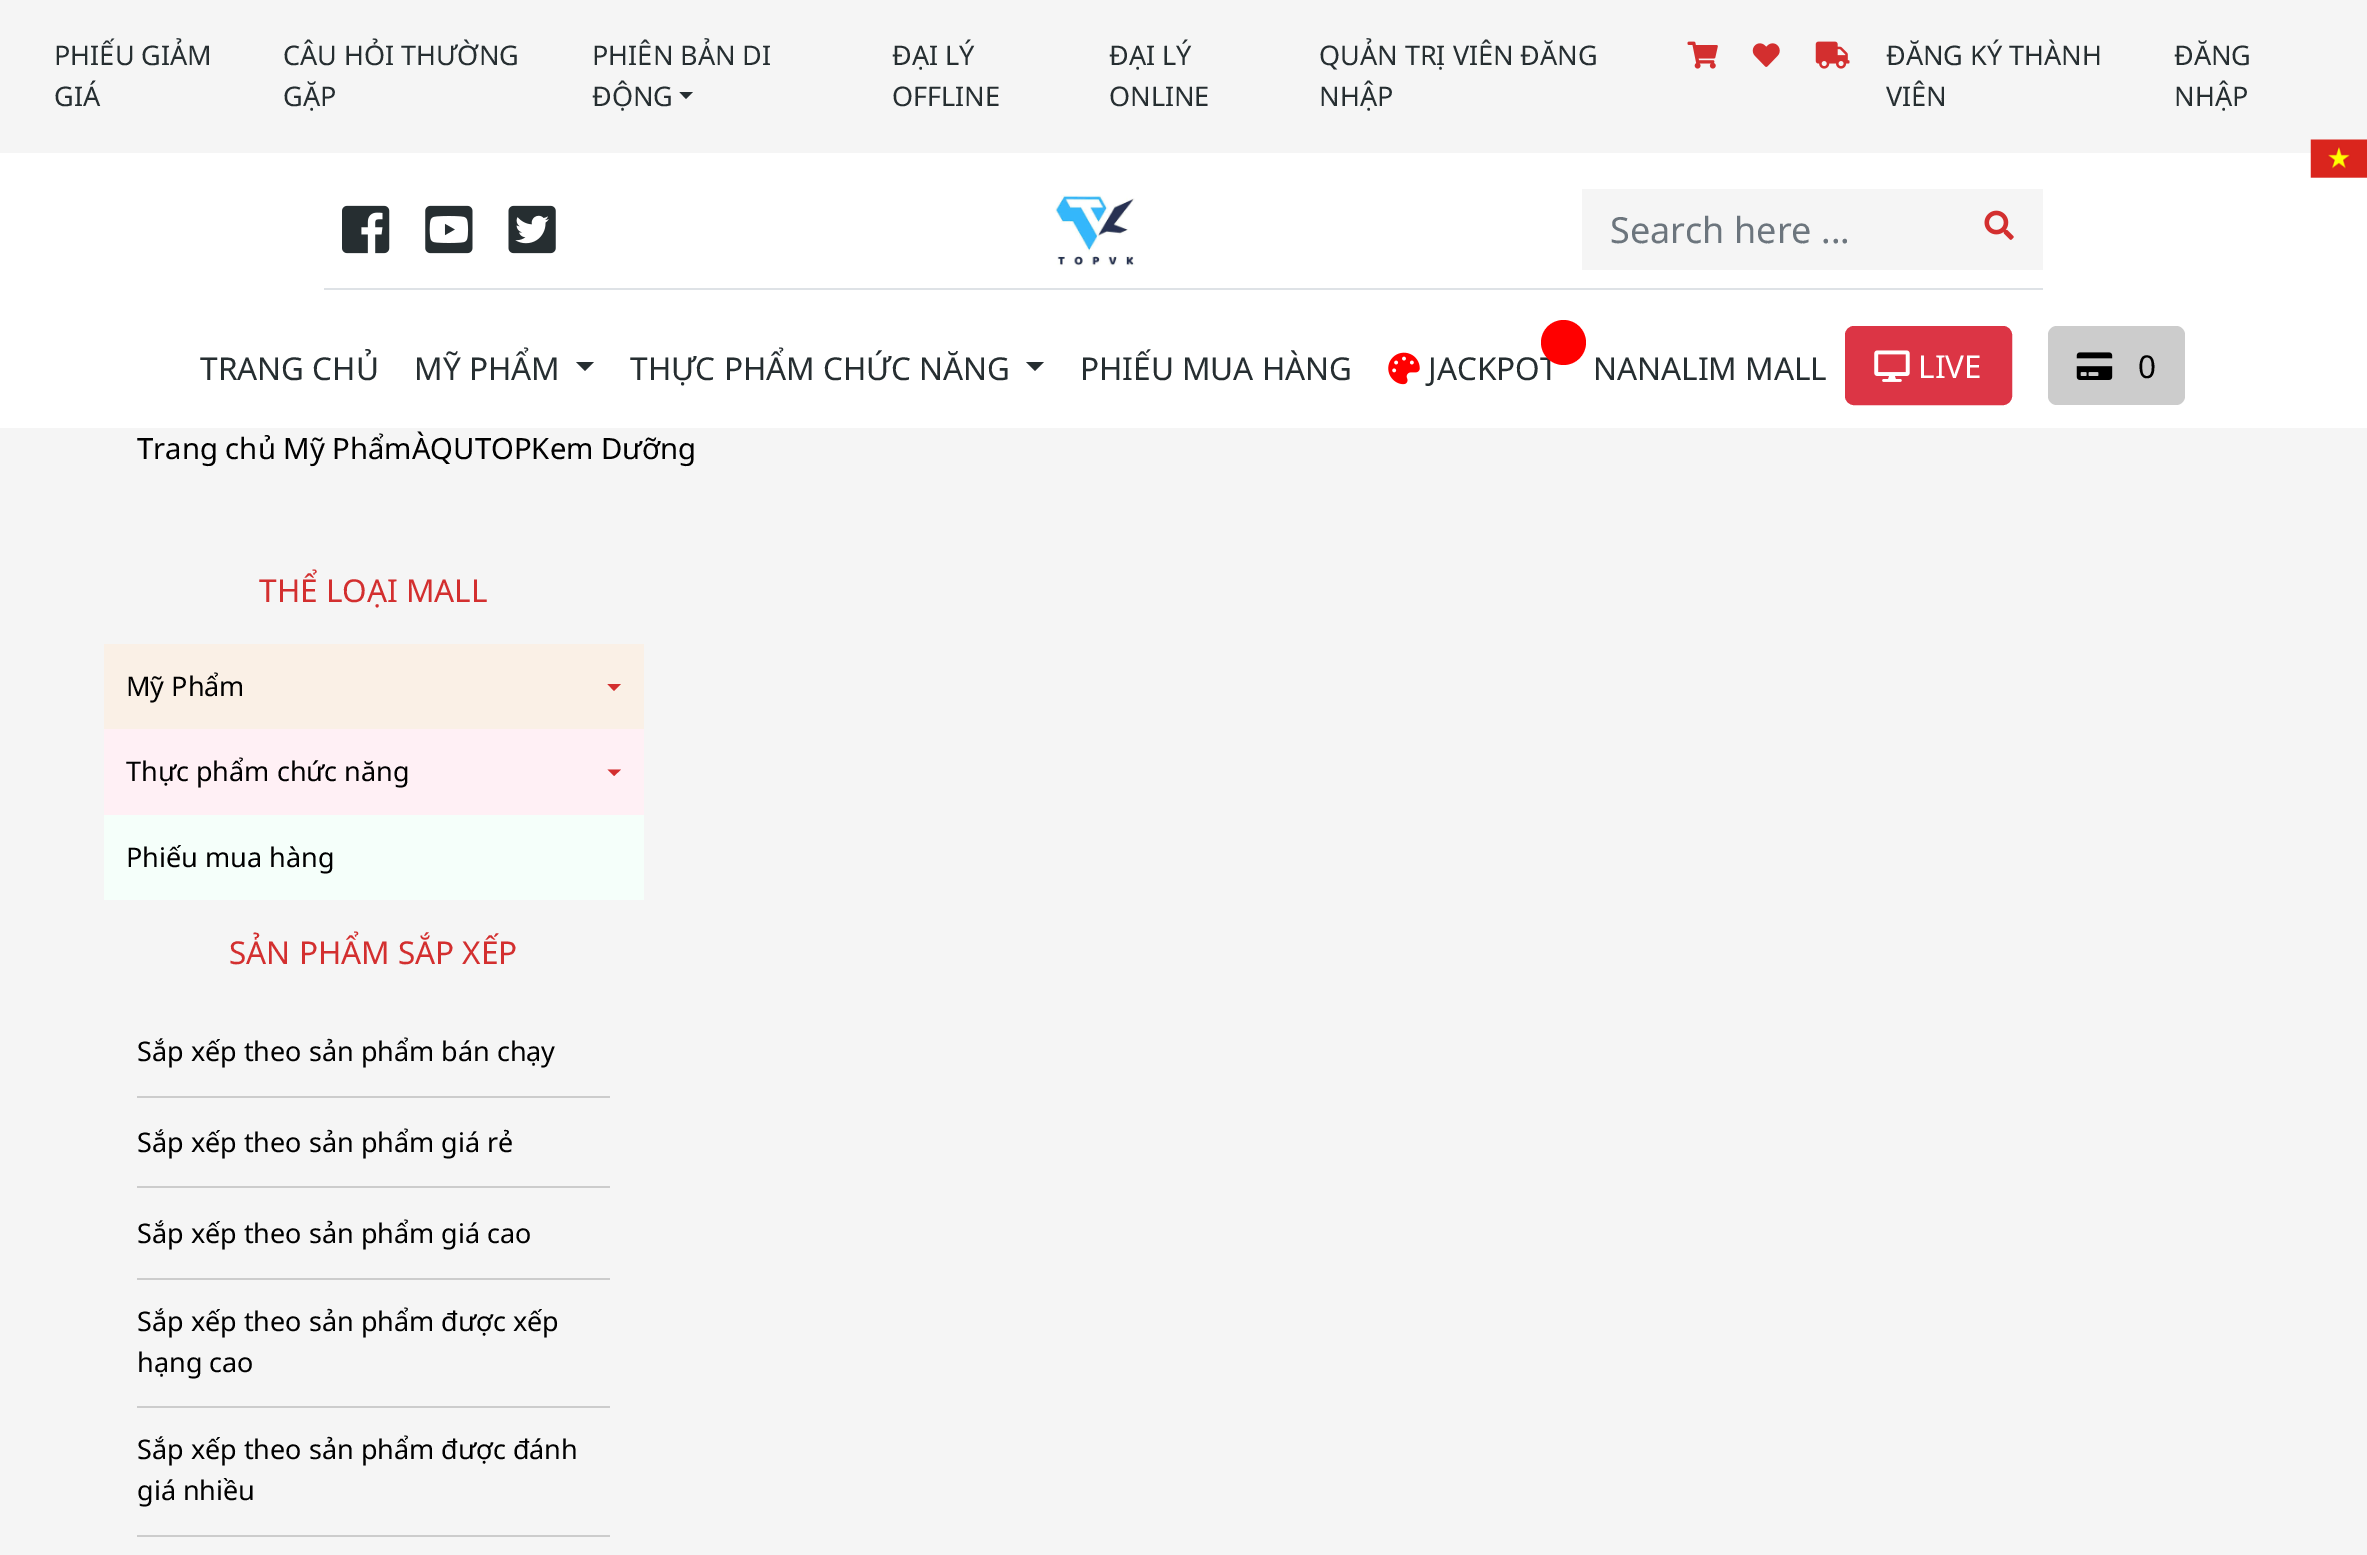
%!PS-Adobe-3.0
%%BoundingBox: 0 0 2367 1555
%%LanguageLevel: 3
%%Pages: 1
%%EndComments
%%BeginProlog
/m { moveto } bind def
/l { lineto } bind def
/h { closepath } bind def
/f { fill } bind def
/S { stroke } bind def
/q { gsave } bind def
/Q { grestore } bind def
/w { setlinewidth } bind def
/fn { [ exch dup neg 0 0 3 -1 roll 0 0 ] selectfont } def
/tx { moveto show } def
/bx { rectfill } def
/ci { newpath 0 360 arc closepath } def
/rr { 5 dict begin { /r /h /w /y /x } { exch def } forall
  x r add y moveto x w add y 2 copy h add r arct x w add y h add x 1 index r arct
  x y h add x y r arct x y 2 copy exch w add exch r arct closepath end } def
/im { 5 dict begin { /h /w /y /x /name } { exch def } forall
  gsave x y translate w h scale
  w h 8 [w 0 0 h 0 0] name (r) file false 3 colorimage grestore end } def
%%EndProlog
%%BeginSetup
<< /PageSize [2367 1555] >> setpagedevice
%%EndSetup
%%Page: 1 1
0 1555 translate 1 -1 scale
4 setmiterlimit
0.961 setgray
0 0 2367 1555 bx
/NotoSans-Regular 27 fn
0.149 0.18 0.192 setrgbcolor
(PHIẾU GIẢM) 54 65 tx
(GIÁ) 54 106 tx
(CÂU HỎI THƯỜNG) 283 65 tx
(GẶP) 283 106 tx
(PHIÊN BẢN DI) 592 65 tx
(ĐỘNG) 592 106 tx
679.5 92 m 693 92 l 686 99 l h f
(ĐẠI LÝ) 892 65 tx
(OFFLINE) 892 106 tx
(ĐẠI LÝ) 1109 65 tx
(ONLINE) 1109 106 tx
(QUẢN TRỊ VIÊN ĐĂNG) 1319 65 tx
(NHẬP) 1319 106 tx
(image0.raw) 1687 41 31 28 im
(image1.raw) 1752 43 28 24 im
(image2.raw) 1815 41 35 28 im
(ĐĂNG KÝ THÀNH) 1886 65 tx
(VIÊN) 1886 106 tx
(ĐĂNG) 2174 65 tx
(NHẬP) 2174 106 tx
1 setgray
0 153 2367 275 bx
(image3.raw) 2310 139 57 39 im
0.871 0.886 0.902 setrgbcolor
324 288 1719 2 bx
(image4.raw) 342 205 48 49 im
(image5.raw) 425 205 48 49 im
(image6.raw) 508 205 48 49 im
(image7.raw) 1055 195 80 72 im
0.961 setgray
1582 189 461 81 bx
/NotoSans-Regular 36 fn
0.424 0.459 0.49 setrgbcolor
(Search here ...) 1610 243 tx
(image8.raw) 1984 210 30 30 im
/NotoSans-Regular 31.5 fn
0.149 0.18 0.192 setrgbcolor
(TRANG CHỦ) 200 380 tx
(MỸ PHẨM) 414 380 tx
576 362 m 594 362 l 585 371 l h f
(THỰC PHẨM CHỨC NĂNG) 630 380 tx
1026 362 m 1044 362 l 1035 371 l h f
(PHIẾU MUA HÀNG) 1080 380 tx
(JACKPOT) 1428 380 tx
1 0 0 setrgbcolor
1563.5 342.5 22.5 ci f
(image9.raw) 1388 352 32 33 im
0.149 0.18 0.192 setrgbcolor
(NANALIM MALL) 1593 380 tx
0.863 0.208 0.271 setrgbcolor
1846 327 165 77 8 rr q f Q
2 w
S
(image10.raw) 1874 350 36 32 im
1 setgray
(LIVE) 1918 378 tx
0.8 setgray
2048 326 137 79 9 rr f
(image11.raw) 2076 352 37 28 im
0 setgray
(0) 2138 378 tx
/NotoSans-Regular 29.25 fn
(Trang chủ Mỹ PhẩmÀQUTOPKem Dưỡng) 137 459 tx
/NotoSans-Regular 31.5 fn
0.827 0.184 0.184 setrgbcolor
(THỂ LOẠI MALL) 259 602 tx
0.98 0.941 0.902 setrgbcolor
104 644 540 85 bx
/NotoSans-Regular 27 fn
0 setgray
(Mỹ Phẩm) 126 696 tx
0.827 0.184 0.184 setrgbcolor
607.5 684 m 621 684 l 614 691 l h f
1 0.941 0.961 setrgbcolor
104 729 540 86 bx
0 setgray
(Thực phẩm chức năng) 126 781 tx
0.827 0.184 0.184 setrgbcolor
607.5 769.5 m 621 769.5 l 614 776 l h f
0.961 1 0.98 setrgbcolor
104 815 540 85 bx
0 setgray
(Phiếu mua hàng) 126 867 tx
/NotoSans-Regular 31.5 fn
0.827 0.184 0.184 setrgbcolor
(SẢN PHẨM SẮP XẾP) 229 964 tx
0.8 setgray
137 1096 473 2 bx
/NotoSans-Regular 27 fn
0 setgray
(Sắp xếp theo sản phẩm bán chạy) 137 1061 tx
0.8 setgray
137 1186 473 2 bx
0 setgray
(Sắp xếp theo sản phẩm giá rẻ) 137 1152 tx
0.8 setgray
137 1278 473 2 bx
0 setgray
(Sắp xếp theo sản phẩm giá cao) 137 1243 tx
0.8 setgray
137 1406 473 2 bx
0 setgray
(Sắp xếp theo sản phẩm được xếp) 137 1331 tx
(hạng cao) 137 1372 tx
0.8 setgray
137 1535 473 2 bx
0 setgray
(Sắp xếp theo sản phẩm được đánh) 137 1459 tx
(giá nhiều) 137 1500 tx
showpage
%%EOF
